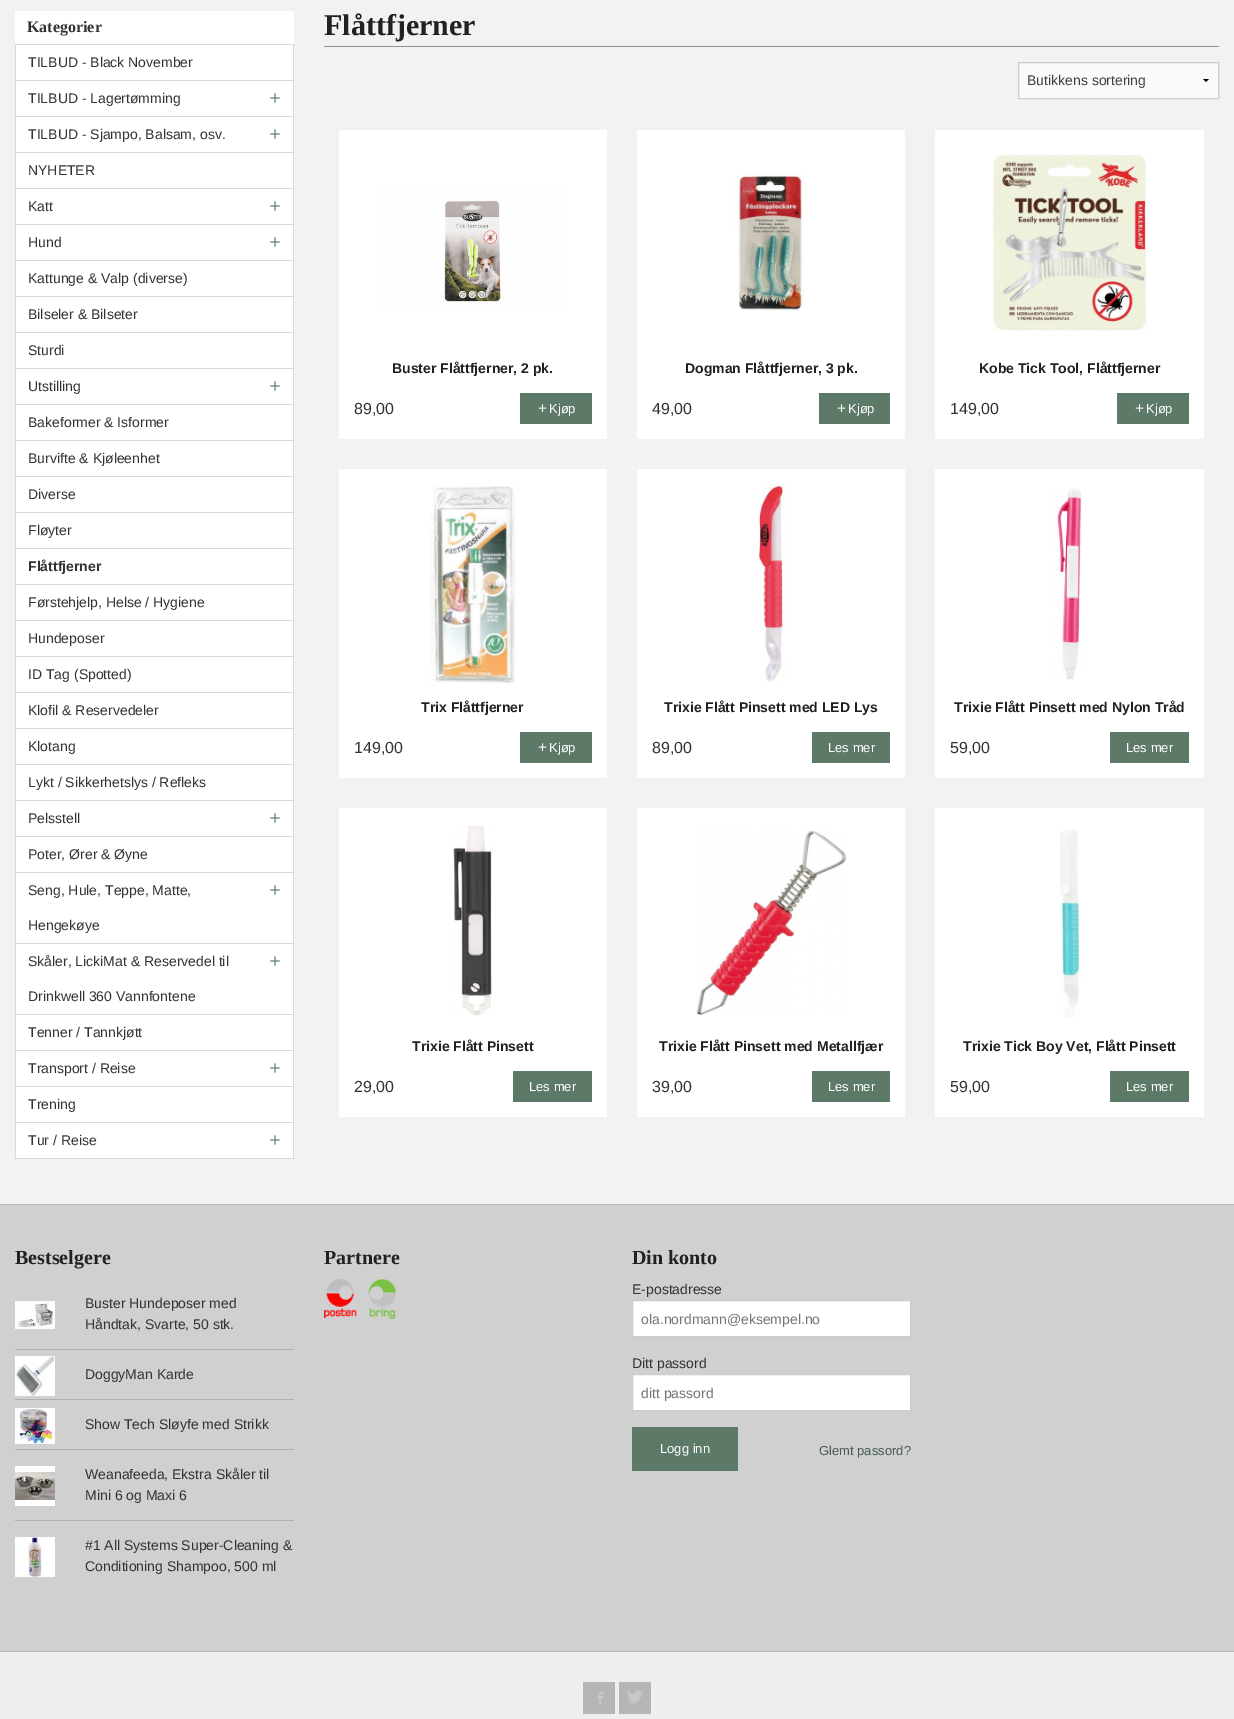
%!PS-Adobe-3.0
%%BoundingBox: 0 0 1234 1719
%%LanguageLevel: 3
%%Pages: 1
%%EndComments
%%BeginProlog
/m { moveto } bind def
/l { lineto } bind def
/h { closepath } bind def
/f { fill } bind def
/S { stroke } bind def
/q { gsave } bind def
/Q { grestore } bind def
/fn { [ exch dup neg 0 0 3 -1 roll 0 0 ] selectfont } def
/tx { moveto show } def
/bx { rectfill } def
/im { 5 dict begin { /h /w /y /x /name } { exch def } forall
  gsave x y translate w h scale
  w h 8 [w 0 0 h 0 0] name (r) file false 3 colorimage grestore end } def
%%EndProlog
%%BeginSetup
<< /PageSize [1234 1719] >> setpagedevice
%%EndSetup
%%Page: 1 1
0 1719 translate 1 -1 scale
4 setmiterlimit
0.949 setgray
0 0 1234 1719 bx
1 setgray
15 11 279 33 bx
/LiberationSerif-Bold 16 fn
0.2 setgray
(Kategorier) 27 32 tx
1 setgray
16 45 277 1113 bx
0.851 setgray
15 44 279 1 bx
293 44 1 1115 bx
15 44 1 1115 bx
16 80 277 1 bx
/LiberationSans-Regular 14 fn
0.2 setgray
(TILBUD - Black November) 28 67 tx
0.851 setgray
16 116 277 1 bx
0.2 setgray
(TILBUD - Lagertømming) 28 103 tx
(image0.raw) 270 93 10 10 im
0.851 setgray
16 152 277 1 bx
0.2 setgray
(TILBUD - Sjampo, Balsam, osv.) 28 139 tx
(image0.raw) 270 129 10 10 im
0.851 setgray
16 188 277 1 bx
0.2 setgray
(NYHETER) 28 175 tx
0.851 setgray
16 224 277 1 bx
0.2 setgray
(Katt) 28 211 tx
(image0.raw) 270 201 10 10 im
0.851 setgray
16 260 277 1 bx
0.2 setgray
(Hund) 28 247 tx
(image0.raw) 270 237 10 10 im
0.851 setgray
16 296 277 1 bx
0.2 setgray
(Kattunge & Valp \(diverse\)) 28 283 tx
0.851 setgray
16 332 277 1 bx
0.2 setgray
(Bilseler & Bilseter) 28 319 tx
0.851 setgray
16 368 277 1 bx
0.2 setgray
(Sturdi) 28 355 tx
0.851 setgray
16 404 277 1 bx
0.2 setgray
(Utstilling) 28 391 tx
(image0.raw) 270 381 10 10 im
0.851 setgray
16 440 277 1 bx
0.2 setgray
(Bakeformer & Isformer) 28 427 tx
0.851 setgray
16 476 277 1 bx
0.2 setgray
(Burvifte & Kjøleenhet) 28 463 tx
0.851 setgray
16 512 277 1 bx
0.2 setgray
(Diverse) 28 499 tx
0.851 setgray
16 548 277 1 bx
0.2 setgray
(Fløyter) 28 535 tx
0.851 setgray
16 584 277 1 bx
/LiberationSans-Bold 14 fn
0.2 setgray
(Flåttfjerner) 28 571 tx
0.851 setgray
16 620 277 1 bx
/LiberationSans-Regular 14 fn
0.2 setgray
(Førstehjelp, Helse / Hygiene) 28 607 tx
0.851 setgray
16 656 277 1 bx
0.2 setgray
(Hundeposer) 28 643 tx
0.851 setgray
16 692 277 1 bx
0.2 setgray
(ID Tag \(Spotted\)) 28 679 tx
0.851 setgray
16 728 277 1 bx
0.2 setgray
(Klofil & Reservedeler) 28 715 tx
0.851 setgray
16 764 277 1 bx
0.2 setgray
(Klotang) 28 751 tx
0.851 setgray
16 800 277 1 bx
0.2 setgray
(Lykt / Sikkerhetslys / Refleks) 28 787 tx
0.851 setgray
16 836 277 1 bx
0.2 setgray
(Pelsstell) 28 823 tx
(image0.raw) 270 813 10 10 im
0.851 setgray
16 872 277 1 bx
0.2 setgray
(Poter, Ører & Øyne) 28 859 tx
0.851 setgray
16 943 277 1 bx
0.2 setgray
(Seng, Hule, Teppe, Matte,) 28 895 tx
(Hengekøye) 28 930 tx
(image0.raw) 270 885 10 10 im
0.851 setgray
16 1014 277 1 bx
0.2 setgray
(Skåler, LickiMat & Reservedel til) 28 966 tx
(Drinkwell 360 Vannfontene) 28 1001 tx
(image0.raw) 270 956 10 10 im
0.851 setgray
16 1050 277 1 bx
0.2 setgray
(Tenner / Tannkjøtt) 28 1037 tx
0.851 setgray
16 1086 277 1 bx
0.2 setgray
(Transport / Reise) 28 1073 tx
(image0.raw) 270 1063 10 10 im
0.851 setgray
16 1122 277 1 bx
0.2 setgray
(Trening) 28 1109 tx
0.851 setgray
16 1158 277 1 bx
0.2 setgray
(Tur / Reise) 28 1145 tx
(image0.raw) 270 1135 10 10 im
0.576 setgray
324 46 895 1 bx
/LiberationSerif-Bold 30 fn
0.129 setgray
(Flåttfjerner) 324 35 tx
0.98 setgray
1019 63 199 35 bx
0 setgray
1209 79 m 1206 82 l 1203 79 l h f
0.8 setgray
1018.5 62.5 200 36 rectstroke
/LiberationSans-Regular 14 fn
0.247 setgray
(Butikkens sortering) 1027 85 tx
1 setgray
339 130 268 309 bx
(image1.raw) 379 189 188 118 im
/LiberationSans-Bold 14 fn
0.129 setgray
(Buster Flåttfjerner, 2 pk.) 392 373 tx
/LiberationSans-Regular 16 fn
0.2 setgray
(89,00) 354 414 tx
0.365 0.478 0.412 setrgbcolor
520 393 72 31 bx
(image2.raw) 538 404 9 8 im
/LiberationSans-Regular 13 fn
1 setgray
(Kjøp) 549 413 tx
637 130 268 309 bx
(image3.raw) 735 173 70 138 im
/LiberationSans-Bold 14 fn
0.129 setgray
(Dogman Flåttfjerner, 3 pk.) 685 373 tx
/LiberationSans-Regular 16 fn
0.2 setgray
(49,00) 652 414 tx
0.365 0.478 0.412 setrgbcolor
819 393 71 31 bx
(image2.raw) 837 404 9 8 im
/LiberationSans-Regular 13 fn
1 setgray
(Kjøp) 848 413 tx
935 130 269 309 bx
(image4.raw) 992 154 156 177 im
/LiberationSans-Bold 14 fn
0.129 setgray
(Kobe Tick Tool, Flåttfjerner) 979 373 tx
/LiberationSans-Regular 16 fn
0.2 setgray
(149,00) 950 414 tx
0.365 0.478 0.412 setrgbcolor
1117 393 72 31 bx
(image2.raw) 1135 404 9 8 im
/LiberationSans-Regular 13 fn
1 setgray
(Kjøp) 1146 413 tx
339 469 268 309 bx
(image5.raw) 430 486 86 198 im
/LiberationSans-Bold 14 fn
0.129 setgray
(Trix Flåttfjerner) 421 712 tx
/LiberationSans-Regular 16 fn
0.2 setgray
(149,00) 354 753 tx
0.365 0.478 0.412 setrgbcolor
520 732 72 31 bx
(image2.raw) 538 743 9 8 im
/LiberationSans-Regular 13 fn
1 setgray
(Kjøp) 549 752 tx
637 469 268 309 bx
(image6.raw) 758 484 28 198 im
/LiberationSans-Bold 14 fn
0.129 setgray
(Trixie Flått Pinsett med LED Lys) 664 712 tx
/LiberationSans-Regular 16 fn
0.2 setgray
(89,00) 652 753 tx
0.365 0.478 0.412 setrgbcolor
812 732 78 31 bx
/LiberationSans-Regular 13 fn
1 setgray
(Les mer) 828 752 tx
935 469 269 309 bx
(image7.raw) 1053 488 29 192 im
/LiberationSans-Bold 14 fn
0.129 setgray
(Trixie Flått Pinsett med Nylon Tråd) 954 712 tx
/LiberationSans-Regular 16 fn
0.2 setgray
(59,00) 950 753 tx
0.365 0.478 0.412 setrgbcolor
1110 732 79 31 bx
/LiberationSans-Regular 13 fn
1 setgray
(Les mer) 1126 752 tx
339 808 268 309 bx
(image8.raw) 453 825 39 191 im
/LiberationSans-Bold 14 fn
0.129 setgray
(Trixie Flått Pinsett) 412 1051 tx
/LiberationSans-Regular 16 fn
0.2 setgray
(29,00) 354 1092 tx
0.365 0.478 0.412 setrgbcolor
513 1071 79 31 bx
/LiberationSans-Regular 13 fn
1 setgray
(Les mer) 529 1091 tx
637 808 268 309 bx
(image9.raw) 696 830 150 185 im
/LiberationSans-Bold 14 fn
0.129 setgray
(Trixie Flått Pinsett med Metallfjær) 659 1051 tx
/LiberationSans-Regular 16 fn
0.2 setgray
(39,00) 652 1092 tx
0.365 0.478 0.412 setrgbcolor
812 1071 78 31 bx
/LiberationSans-Regular 13 fn
1 setgray
(Les mer) 828 1091 tx
935 808 269 309 bx
(image10.raw) 1060 829 21 189 im
/LiberationSans-Bold 14 fn
0.129 setgray
(Trixie Tick Boy Vet, Flått Pinsett) 963 1051 tx
/LiberationSans-Regular 16 fn
0.2 setgray
(59,00) 950 1092 tx
0.365 0.478 0.412 setrgbcolor
1110 1071 79 31 bx
/LiberationSans-Regular 13 fn
1 setgray
(Les mer) 1126 1091 tx
0.816 setgray
0 1205 1234 446 bx
0.714 setgray
0 1204 1234 1 bx
/LiberationSerif-Bold 20 fn
0.129 setgray
(Bestselgere) 15 1264 tx
0.694 setgray
15 1349 279 1 bx
(image11.raw) 15 1301 40 28 im
/LiberationSans-Regular 14 fn
0.2 setgray
(Buster Hundeposer med) 85 1308 tx
(Håndtak, Svarte, 50 stk.) 85 1329 tx
0.694 setgray
15 1399 279 1 bx
(image12.raw) 15 1356 40 40 im
0.2 setgray
(DoggyMan Karde) 85 1379 tx
0.694 setgray
15 1449 279 1 bx
(image13.raw) 15 1408 40 36 im
0.2 setgray
(Show Tech Sløyfe med Strikk) 85 1429 tx
0.694 setgray
15 1520 279 1 bx
(image14.raw) 15 1466 40 40 im
0.2 setgray
(Weanafeeda, Ekstra Skåler til) 85 1479 tx
(Mini 6 og Maxi 6) 85 1500 tx
(image15.raw) 15 1537 40 40 im
(#1 All Systems Super-Cleaning &) 85 1550 tx
(Conditioning Shampoo, 500 ml) 85 1571 tx
/LiberationSerif-Bold 20 fn
0.129 setgray
(Partnere) 324 1264 tx
(image16.raw) 324 1279 72 40 im
(Din konto) 632 1264 tx
/LiberationSans-Regular 14 fn
0.2 setgray
(E-postadresse) 632 1294 tx
1 setgray
632.5 1300.5 m 910.5 1300.5 l 910.5 1336.5 l 632.5 1336.5 l h q f Q
0.8 setgray
S
0.459 setgray
(ola.nordmann@eksempel.no) 641 1324 tx
0.2 setgray
(Ditt passord) 632 1368 tx
1 setgray
632.5 1374.5 m 910.5 1374.5 l 910.5 1410.5 l 632.5 1410.5 l h q f Q
0.8 setgray
S
0.459 setgray
(ditt passord) 641 1398 tx
0.365 0.478 0.412 setrgbcolor
632 1427 106 44 bx
/LiberationSans-Regular 13 fn
1 setgray
(Logg inn) 660 1453 tx
0.278 0.365 0.314 setrgbcolor
(Glemt passord?) 819 1455 tx
0.933 setgray
0 1652 1234 67 bx
0.714 setgray
0 1651 1234 1 bx
583 1682 32 32 bx
(image17.raw) 597 1692 7 13 im
619 1682 32 32 bx
(image18.raw) 627 1690 16 14 im
showpage
%%EOF
